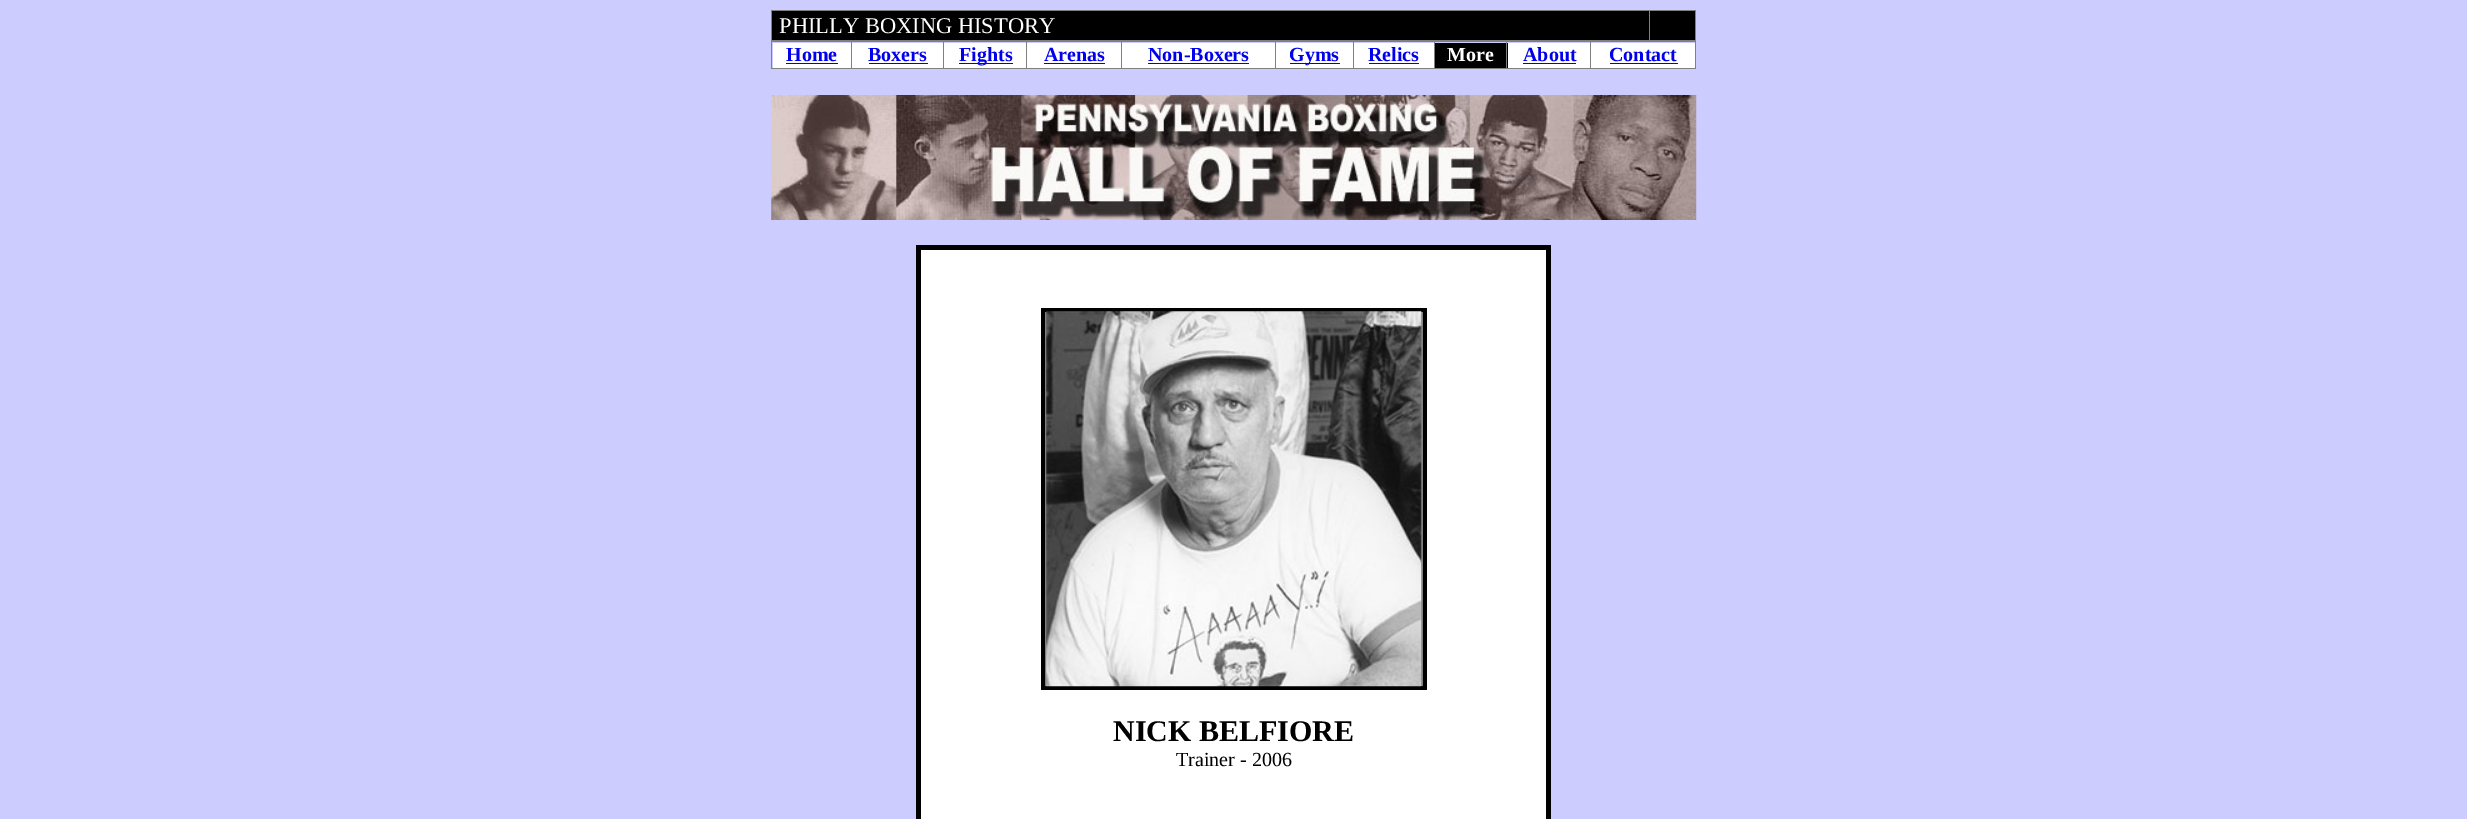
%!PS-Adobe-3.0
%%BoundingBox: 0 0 2467 819
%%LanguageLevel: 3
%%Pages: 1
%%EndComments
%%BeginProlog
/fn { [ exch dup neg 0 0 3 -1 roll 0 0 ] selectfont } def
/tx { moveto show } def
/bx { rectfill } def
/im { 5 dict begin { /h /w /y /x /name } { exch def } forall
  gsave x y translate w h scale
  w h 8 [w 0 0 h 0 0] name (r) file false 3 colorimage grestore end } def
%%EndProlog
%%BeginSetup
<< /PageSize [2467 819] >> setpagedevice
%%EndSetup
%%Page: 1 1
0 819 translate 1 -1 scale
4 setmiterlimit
0.8 0.8 1 setrgbcolor
0 0 2467 819 bx
0 setgray
772 11 923 29 bx
0.502 setgray
771 10 925 1 bx
1695 10 1 31 bx
771 40 925 2 bx
771 10 1 31 bx
/LiberationSerif-Regular 22.5 fn
1 setgray
(PHILLY BOXING HISTORY) 779 33 tx
0.502 setgray
1649 10 1 31 bx
1695 41 1 28 bx
771 68 925 1 bx
771 41 1 28 bx
1 setgray
773 43 170 25 bx
/LiberationSerif-Bold 20 fn
0 0 0.933 setrgbcolor
(Home) 786 61 tx
786 63 52 1 bx
0.502 setgray
851 41 1 28 bx
0 0 0.933 setrgbcolor
(Boxers) 868 61 tx
869 63 59 1 bx
1 setgray
944 43 177 25 bx
0.502 setgray
943 41 1 28 bx
0 0 0.933 setrgbcolor
959 63 54 1 bx
(Fights) 959 61 tx
0.502 setgray
1026 41 1 28 bx
0 0 0.933 setrgbcolor
(Arenas) 1044 61 tx
1044 63 61 1 bx
1 setgray
1122 43 153 25 bx
0.502 setgray
1121 41 1 28 bx
0 0 0.933 setrgbcolor
(Non-Boxers) 1148 61 tx
1148 63 101 1 bx
1 setgray
1276 43 77 25 bx
0.502 setgray
1275 41 1 28 bx
0 0 0.933 setrgbcolor
1290 63 50 1 bx
(Gyms) 1289 61 tx
1 setgray
1354 43 80 25 bx
0.502 setgray
1353 41 1 28 bx
0 0 0.933 setrgbcolor
(Relics) 1368 61 tx
1369 63 50 1 bx
0 setgray
1435 43 73 25 bx
0.502 setgray
1434 41 1 28 bx
1 setgray
(More) 1447 61 tx
1508 43 82 25 bx
0.502 setgray
1506 41 1 28 bx
0 0 0.933 setrgbcolor
(About) 1523 61 tx
1523 63 53 1 bx
1 setgray
1591 43 104 25 bx
0.502 setgray
1590 41 1 28 bx
0 0 0.933 setrgbcolor
(Contact) 1609 61 tx
1610 63 68 1 bx
(image0.raw) 771 95 926 125 im
1 setgray
921 250 123 59 bx
0 setgray
916 245 635 5 bx
916 306 5 513 bx
916 245 5 66 bx
1 setgray
1424 250 122 59 bx
0 setgray
1546 306 5 513 bx
1546 245 5 66 bx
1 setgray
1044 250 380 58 bx
921 309 120 379 bx
0.502 setgray
1045 312 378 374 bx
0 setgray
1041 308 385 4 bx
1 setgray
1424 688 122 131 bx
0 setgray
1423 308 4 382 bx
1 setgray
921 688 123 131 bx
0 setgray
1041 686 385 4 bx
1041 308 4 382 bx
(image1.raw) 1046 311 376 376 im
1 setgray
1427 309 119 379 bx
1044 690 380 129 bx
/LiberationSerif-Bold 30 fn
0 setgray
(NICK BELFIORE) 1113 741 tx
/LiberationSerif-Regular 20 fn
(Trainer - 2006) 1176 766 tx
showpage
%%EOF
